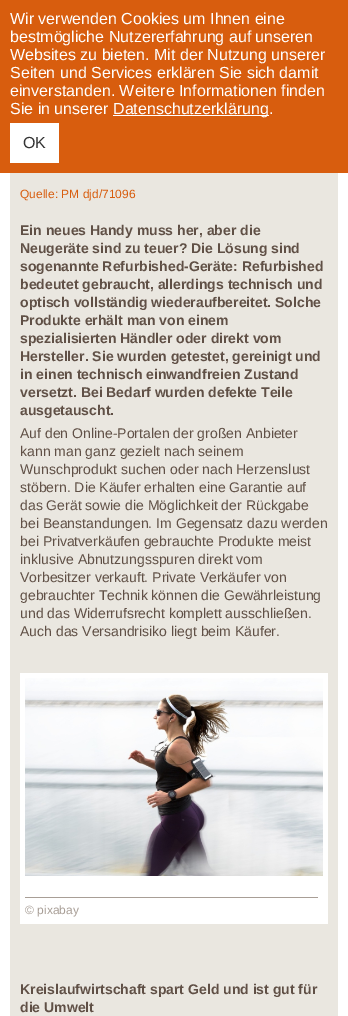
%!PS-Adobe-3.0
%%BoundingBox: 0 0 348 1016
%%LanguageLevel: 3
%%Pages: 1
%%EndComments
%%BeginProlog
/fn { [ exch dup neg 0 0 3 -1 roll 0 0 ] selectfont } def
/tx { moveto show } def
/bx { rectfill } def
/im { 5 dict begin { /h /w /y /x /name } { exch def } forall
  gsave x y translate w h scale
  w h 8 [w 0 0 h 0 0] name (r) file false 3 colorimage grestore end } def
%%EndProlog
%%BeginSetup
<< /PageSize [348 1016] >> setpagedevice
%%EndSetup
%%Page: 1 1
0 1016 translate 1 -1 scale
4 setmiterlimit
1 setgray
0 0 348 1016 bx
0.847 0.365 0.055 setrgbcolor
0 0 348 173 bx
/LiberationSans-Regular 16 fn
1 setgray
(Wir verwenden Cookies um Ihnen eine) 10 24 tx
(bestmögliche Nutzererfahrung auf unseren) 10 42 tx
(Websites zu bieten. Mit der Nutzung unserer) 10 60 tx
(Seiten und Services erklären Sie sich damit) 10 78 tx
(einverstanden. Weitere Informationen finden) 10 96 tx
(Sie in unserer) 10 114 tx
113 115 156 1 bx
(Datenschutzerklärung.) 113 114 tx
10 123 49 40 bx
0.2 setgray
(OK) 23 148 tx
0.918 0.906 0.878 setrgbcolor
10 173 328 843 bx
/LiberationSans-Regular 12 fn
0.847 0.365 0.055 setrgbcolor
(Quelle: PM djd/71096) 20 198 tx
/LiberationSans-Bold 14 fn
0.376 0.314 0.275 setrgbcolor
(Ein neues Handy muss her, aber die) 20 235 tx
(Neugeräte sind zu teuer? Die Lösung sind) 20 253 tx
(sogenannte Refurbished-Geräte: Refurbished) 20 271 tx
(bedeutet gebraucht, allerdings technisch und) 20 289 tx
(optisch vollständig wiederaufbereitet. Solche) 20 307 tx
(Produkte erhält man von einem) 20 325 tx
(spezialisierten Händler oder direkt vom) 20 343 tx
(Hersteller. Sie wurden getestet, gereinigt und) 20 361 tx
(in einen technisch einwandfreien Zustand) 20 379 tx
(versetzt. Bei Bedarf wurden defekte Teile) 20 397 tx
(ausgetauscht.) 20 415 tx
/LiberationSans-Regular 14 fn
(Auf den Online-Portalen der großen Anbieter) 20 438 tx
(kann man ganz gezielt nach seinem) 20 456 tx
(Wunschprodukt suchen oder nach Herzenslust) 20 474 tx
(stöbern. Die Käufer erhalten eine Garantie auf) 20 492 tx
(das Gerät sowie die Möglichkeit der Rückgabe) 20 510 tx
(bei Beanstandungen. Im Gegensatz dazu werden) 20 528 tx
(bei Privatverkäufen gebrauchte Produkte meist) 20 546 tx
(inklusive Abnutzungsspuren direkt vom) 20 564 tx
(Vorbesitzer verkauft. Private Verkäufer von) 20 582 tx
(gebrauchter Technik können die Gewährleistung) 20 600 tx
(und das Widerrufsrecht komplett ausschließen.) 20 618 tx
(Auch das Versandrisiko liegt beim Käufer.) 20 636 tx
1 setgray
20 673 308 251 bx
(image0.raw) 25 678 298 198 im
0.659 0.62 0.588 setrgbcolor
25 897 293 1 bx
/LiberationSans-Regular 12 fn
(© pixabay) 25 914 tx
/LiberationSans-Bold 14 fn
0.376 0.314 0.275 setrgbcolor
(Kreislaufwirtschaft spart Geld und ist gut für) 20 994 tx
(die Umwelt) 20 1012 tx
showpage
%%EOF
